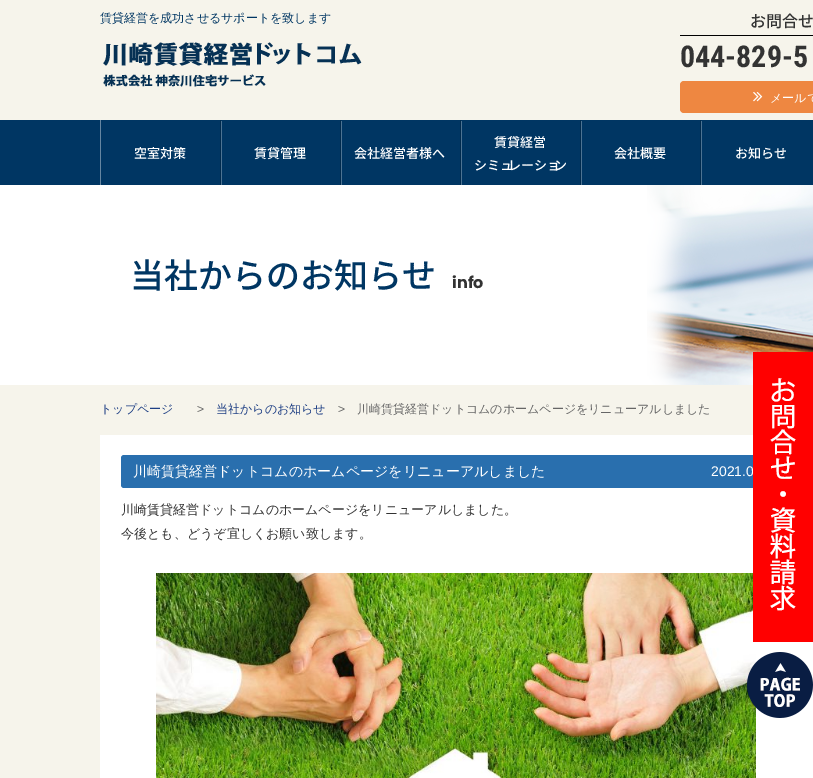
%!PS-Adobe-3.0
%%BoundingBox: 0 0 813 778
%%LanguageLevel: 3
%%Pages: 1
%%EndComments
%%BeginProlog
/m { moveto } bind def
/l { lineto } bind def
/h { closepath } bind def
/f { fill } bind def
/fn { [ exch dup neg 0 0 3 -1 roll 0 0 ] selectfont } def
/tx { moveto show } def
/bx { rectfill } def
/al { dup .setfillconstantalpha .setstrokeconstantalpha } def
/rr { 5 dict begin { /r /h /w /y /x } { exch def } forall
  x r add y moveto x w add y 2 copy h add r arct x w add y h add x 1 index r arct
  x y h add x y r arct x y 2 copy exch w add exch r arct closepath end } def
/im { 5 dict begin { /h /w /y /x /name } { exch def } forall
  gsave x y translate w h scale
  w h 8 [w 0 0 h 0 0] name (r) file false 3 colorimage grestore end } def
%%EndProlog
%%BeginSetup
<< /PageSize [813 778] /PageUsesTransparency true >> setpagedevice
%%EndSetup
%%Page: 1 1
0 .pushpdf14devicefilter
0 778 translate 1 -1 scale
4 setmiterlimit
0.965 0.957 0.922 setrgbcolor
0 0 813 778 bx
/WenQuanYiZenHei-Medium 12 fn
0 0.212 0.388 setrgbcolor
(賃貸経営を成功させるサポートを致します) 100 22 tx
(image0.raw) 103 42 259 45 im
0 setgray
680 35 133 1 bx
/NotoSansJP-Thin 16 fn
0.2 setgray
(お問合せ) 750 27 tx
/RobotoCondensed-Bold 30 fn
(044-829-5) 680 67 tx
0.933 0.529 0.255 setrgbcolor
680 81 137 32 4 rr f
(image1.raw) 753 92 10 10 im
/WenQuanYiZenHei-Medium 12 fn
1 setgray
(メールで) 770 102 tx
0 0.212 0.388 setrgbcolor
0 120 813 65 bx
0.4 0.525 0.631 setrgbcolor
100 120 1 66 bx
0.3 al
1 setgray
102 186 m 102 187 l 222 187 l 222 121 l 221 121 l 221 186 l h f
1 al
0 0.169 0.31 setrgbcolor
220 120 1 66 bx
/NotoSansJP-Thin 13 fn
1 setgray
(空室対策) 134 158 tx
0.3 al
222 186 m 222 187 l 342 187 l 342 121 l 341 121 l 341 186 l h f
1 al
0 0.169 0.31 setrgbcolor
340 120 1 66 bx
1 setgray
(賃貸管理) 254 158 tx
0.3 al
342 186 m 342 187 l 462 187 l 462 121 l 461 121 l 461 186 l h f
1 al
0 0.169 0.31 setrgbcolor
460 120 1 66 bx
1 setgray
(会社経営者様へ) 354 158 tx
0.3 al
462 186 m 462 187 l 582 187 l 582 121 l 581 121 l 581 186 l h f
1 al
0 0.169 0.31 setrgbcolor
580 120 1 66 bx
1 setgray
(賃貸経営) 494 147 tx
(シミュ) 474 170 tx
(レーショ) 508 170 tx
(ン) 554 170 tx
0.3 al
582 186 m 582 187 l 702 187 l 702 121 l 701 121 l 701 186 l h f
1 al
0 0.169 0.31 setrgbcolor
700 120 1 66 bx
1 setgray
(会社概要) 614 158 tx
(お知らせ) 735 158 tx
0 185 647 200 bx
(image2.raw) 647 185 166 200 im
/NotoSansJP-Thin 34 fn
0 0.212 0.388 setrgbcolor
(当社からのお知らせ) 130 288 tx
/Poppins-Bold 16 fn
0.2 setgray
(info) 452 288 tx
/WenQuanYiZenHei-Medium 12 fn
0.118 0.247 0.518 setrgbcolor
(トップページ) 100 413 tx
/LiberationSans-Regular 12 fn
0.4 setgray
(>) 197 413 tx
/WenQuanYiZenHei-Medium 12 fn
0.118 0.247 0.518 setrgbcolor
(当社からのお知らせ) 216 413 tx
/LiberationSans-Regular 12 fn
0.4 setgray
(>) 338 413 tx
/WenQuanYiZenHei-Medium 12 fn
(川崎賃貸経営ドットコムのホームページをリニューアルしました) 357 413 tx
1 setgray
100 435 713 343 bx
0.161 0.435 0.682 setrgbcolor
121 455 670 33 3 rr f
/LiberationSans-Regular 14 fn
1 setgray
(2021.0) 711 476 tx
(image5.raw) 156 573 600 205 im
(image3.raw) 753 352 60 290 im
(image4.raw) 747 652 66 66 im
/WenQuanYiZenHei-Medium 14 fn
(川崎賃貸経営ドットコムのホームページをリニューアルしました) 133 476 tx
/WenQuanYiZenHei-Medium 13 fn
0.2 setgray
(川崎賃貸経営ドットコムのホームページをリニューアルしました。) 121 514 tx
(今後とも、どうぞ宜しくお願い致します。) 121 538 tx
.poppdf14devicefilter showpage
%%EOF
